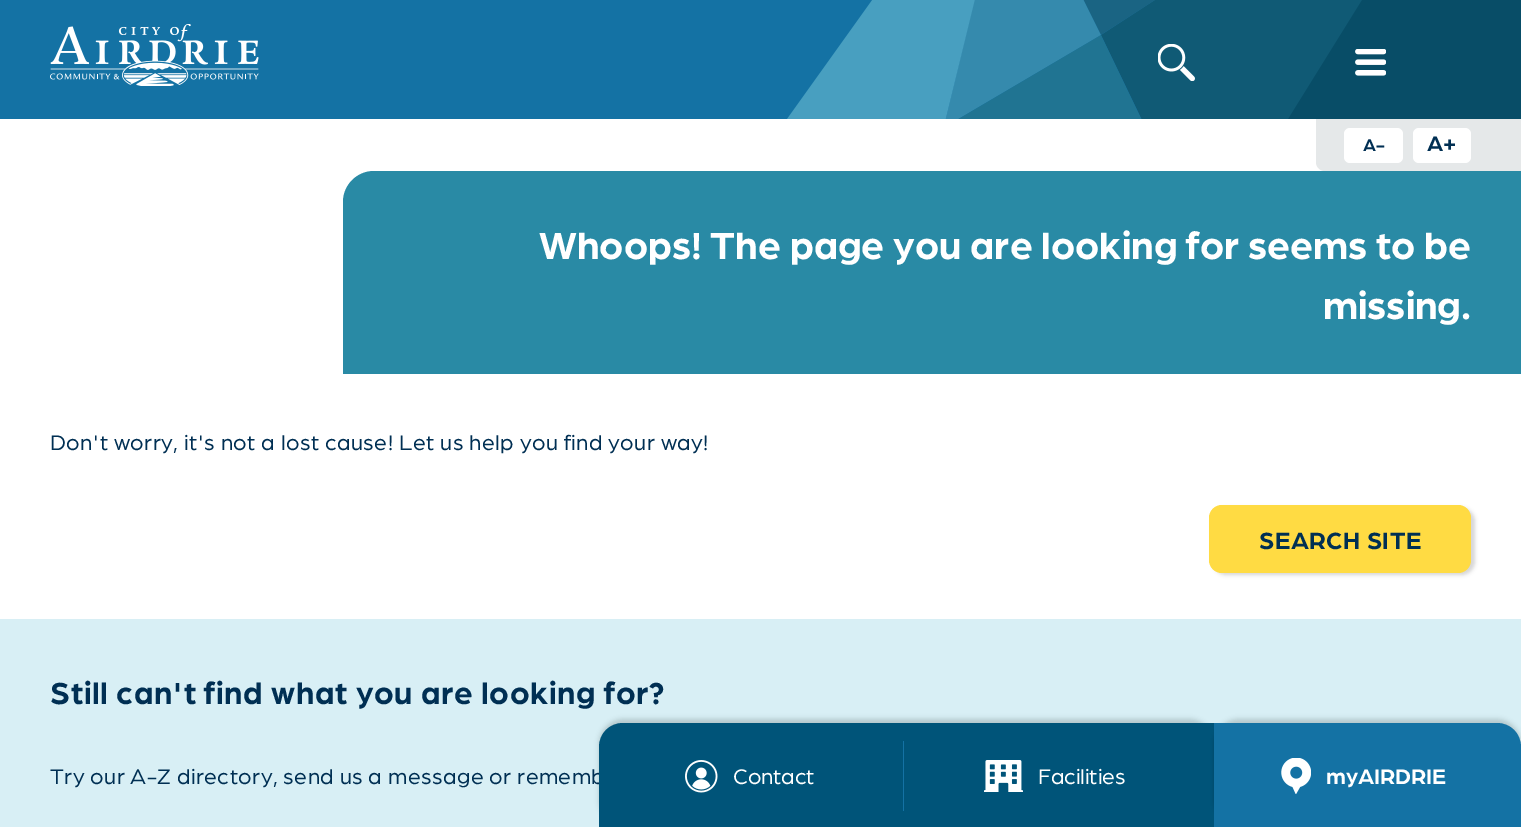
%!PS-Adobe-3.0
%%BoundingBox: 0 0 1521 827
%%LanguageLevel: 3
%%Pages: 1
%%EndComments
%%BeginProlog
/m { moveto } bind def
/l { lineto } bind def
/c { curveto } bind def
/h { closepath } bind def
/f { fill } bind def
/fn { [ exch dup neg 0 0 3 -1 roll 0 0 ] selectfont } def
/tx { moveto show } def
/bx { rectfill } def
/al { dup .setfillconstantalpha .setstrokeconstantalpha } def
/rr { 5 dict begin { /r /h /w /y /x } { exch def } forall
  x r add y moveto x w add y 2 copy h add r arct x w add y h add x 1 index r arct
  x y h add x y r arct x y 2 copy exch w add exch r arct closepath end } def
/sh { 12 dict begin { /a /b /q /h /w /y /x } { exch def } forall gsave /was 0 def
  9 -2 -9 { dup b mul 4 div /e exch def 1 sub .425 mul 2.718 exch exp 1 add a .99 .min exch div /now exch def
    1 1 now sub 1 was sub div sub al /was now def
    w h .min e 2 mul add 0 gt { x e sub y e sub w e 2 mul add h e 2 mul add
      q e add b .6 mul add w h .min 2 div e add .min 0 .max rr fill } if } for grestore end } def
/im { 5 dict begin { /h /w /y /x /name } { exch def } forall
  gsave x y translate w h scale
  w h 8 [w 0 0 h 0 0] name (r) file false 3 colorimage grestore end } def
%%EndProlog
%%BeginSetup
<< /PageSize [1521 827] /PageUsesTransparency true >> setpagedevice
%%EndSetup
%%Page: 1 1
0 .pushpdf14devicefilter
0 827 translate 1 -1 scale
4 setmiterlimit
1 setgray
0 0 1521 827 bx
0.078 0.447 0.643 setrgbcolor
0 0 787 119 bx
(image0.raw) 787 0 734 119 im
(image1.raw) 50 24 209 62 im
(image2.raw) 1158 44 37 37 im
(image3.raw) 1355 49 31 27 im
0.898 0.91 0.914 setrgbcolor
1316 119 m 1521 119 l 1521 171 l 1325 171 l 1320 171 1316 167 1316 162 c h f
1 setgray
1344 128 59 35 6 rr f
/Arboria-Bold 18 fn
0 0.184 0.325 setrgbcolor
(A-) 1363 151 tx
1 setgray
1413 128 58 35 6 rr f
/Arboria-Bold 22.5 fn
0 0.184 0.325 setrgbcolor
(A+) 1427 151 tx
0.161 0.541 0.647 setrgbcolor
374 171 m 1521 171 l 1521 374 l 343 374 l 343 202 l 343 185 357 171 374 171 c h f
/Arboria-Bold 40 fn
1 setgray
(Whoops! The page you are looking for seems to be) 539 259 tx
(missing.) 1323 319 tx
/Arboria-Regular 22.5 fn
0 0.184 0.325 setrgbcolor
50 450 m 0.5 0 (Don't worry, it's not a lost cause! Let us help you find your way!) ashow
0 setgray
1213 508 262 67 13 2 0.16 sh
1 0.859 0.263 setrgbcolor
1209 505 262 68 13 rr f
/Arboria-Bold 25 fn
0 0.184 0.325 setrgbcolor
1259 549 m 0.5 0 (SEARCH SITE) ashow
0.847 0.937 0.961 setrgbcolor
0 619 1521 208 bx
/Arboria-Bold 32.5 fn
0 0.184 0.325 setrgbcolor
50 704 m 0.65 0 (Still can't find what you are looking for?) ashow
/Arboria-Regular 22.5 fn
50 784 m 0.5 0 (Try our A-Z directory, send us a message or rememb) ashow
0 setgray
599 719 615 106 24 2.5 0.16 sh
0 0.329 0.475 setrgbcolor
623 723 m 1214 723 l 1214 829 l 599 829 l 599 747 l 599 733.5 609.5 723 623 723 c h f
(image4.raw) 685 760 33 33 im
0.078 0.447 0.643 setrgbcolor
903 741 1 70 bx
1 setgray
(Contact) 733 784 tx
(image5.raw) 984 760 39 32 im
(Facilities) 1038 784 tx
0 setgray
1214 719 307 106 24 2.5 0.16 sh
0.078 0.447 0.643 setrgbcolor
1214 723 m 1497 723 l 1510.5 723 1521 733.5 1521 747 c 1521 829 l 1214 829 l h f
(image6.raw) 1281 758 30 36 im
/Arboria-Bold 22.5 fn
1 setgray
(myAIRDRIE) 1326 784 tx
.poppdf14devicefilter showpage
%%EOF
